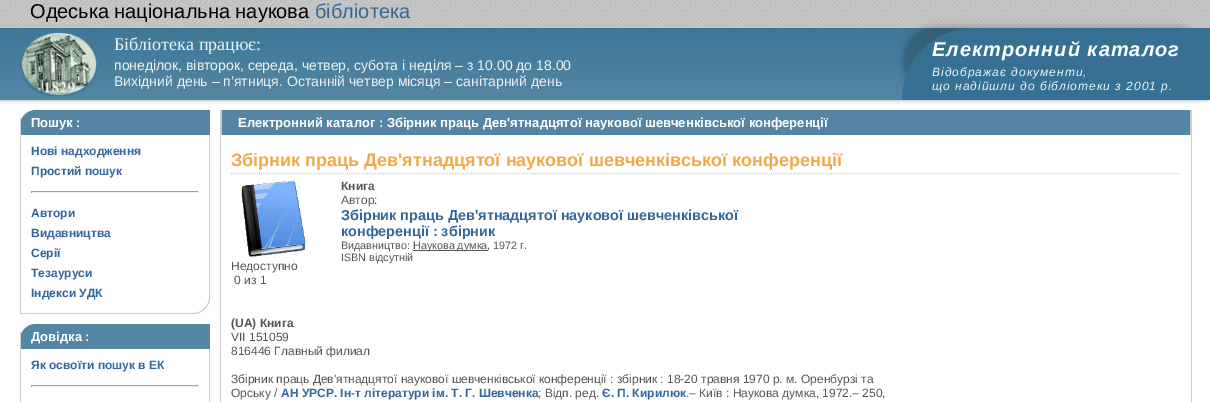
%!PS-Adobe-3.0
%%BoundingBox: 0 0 1210 402
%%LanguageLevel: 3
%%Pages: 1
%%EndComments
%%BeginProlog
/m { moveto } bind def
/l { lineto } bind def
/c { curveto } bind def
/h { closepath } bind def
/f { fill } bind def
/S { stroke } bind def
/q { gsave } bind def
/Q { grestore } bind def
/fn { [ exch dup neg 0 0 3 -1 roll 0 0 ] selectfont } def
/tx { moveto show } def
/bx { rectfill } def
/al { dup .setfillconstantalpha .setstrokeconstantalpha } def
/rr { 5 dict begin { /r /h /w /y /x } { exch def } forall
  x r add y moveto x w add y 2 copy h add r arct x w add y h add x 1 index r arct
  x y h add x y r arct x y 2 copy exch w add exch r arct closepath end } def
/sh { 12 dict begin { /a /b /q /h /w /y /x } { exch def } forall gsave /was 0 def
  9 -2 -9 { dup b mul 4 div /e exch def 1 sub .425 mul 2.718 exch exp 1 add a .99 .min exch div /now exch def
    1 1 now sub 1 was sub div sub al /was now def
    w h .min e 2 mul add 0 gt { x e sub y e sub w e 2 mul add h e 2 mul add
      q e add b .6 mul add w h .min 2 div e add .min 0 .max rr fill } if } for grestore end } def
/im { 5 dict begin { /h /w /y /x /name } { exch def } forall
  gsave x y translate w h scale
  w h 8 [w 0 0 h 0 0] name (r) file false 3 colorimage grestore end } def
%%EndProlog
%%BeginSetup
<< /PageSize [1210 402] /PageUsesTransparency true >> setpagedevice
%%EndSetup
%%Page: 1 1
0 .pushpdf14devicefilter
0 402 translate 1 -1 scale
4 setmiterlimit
1 setgray
0 0 1210 402 bx
0.6 setgray
-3 0 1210 100 0 2 1 sh
q 0 28 m 973 28 l 973 100 l 0 100 l h clip newpath
<< /ShadingType 2 /ColorSpace /DeviceRGB /Coords [605 0 605 100] /Extend [true true] /Function << /FunctionType 2 /Domain [0 1] /C0 [0.212 0.443 0.576] /C1 [0.329 0.525 0.639] /N 1 >> >> shfill Q
(image0.raw) 0 0 1210 28 im
/LiberationSans-Regular 20 fn
0 setgray
(Одеська національна наукова) 30 18 tx
0.2 0.4 0.6 setrgbcolor
(бібліотека) 315 18 tx
(image1.raw) 20 32 78 64 im
/LiberationSerif-Regular 18 fn
0.929 0.953 0.953 setrgbcolor
(Бібліотека працює:) 114 50 tx
/LiberationSans-Regular 14 fn
(понеділок, вівторок, середа, четвер, субота і неділя – з 10.00 до 18.00) 114 70 tx
(Вихідний день – п’ятниця. Останній четвер місяця – санітарний день) 114 86 tx
q
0 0 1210 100 rectclip
0 setgray
902 26 308 72 72 3 0.2 sh
Q
0.212 0.443 0.576 setrgbcolor
974 28 m 1210 28 l 1210 100 l 902 100 l 902 60 934 28 974 28 c h f
/LiberationSans-BoldItalic 20 fn
1 setgray
932 56 m 1 0 (Електронний каталог) ashow
/LiberationSans-Italic 12 fn
0.929 0.953 0.953 setrgbcolor
932 76 m 1 0 (Відображає документи,) ashow
932 90 m 1 0 (що надійшли до бібліотеки з 2001 р.) ashow
0.329 0.525 0.639 setrgbcolor
36 110 m 210 110 l 210 135 l 20 135 l 20 126 l 20 117 27 110 36 110 c h f
0.8 setgray
20 118 1 17 bx
/LiberationSans-Bold 13 fn
1 setgray
(Пошук :) 31 127 tx
0.8 setgray
210 135 m 209 136 l 209 298 l 209 302 207 306 204 308 c 205 309 l 208 306 210 302 210 298 c h f
194 314 m 198 314 202 312 205 309 c 204 308 l 202 311 198 313 194 313 c 21 313 l 20 314 l h f
20 135 m 20 314 l 21 313 l 21 136 l h f
/LiberationSans-Bold 12 fn
0.2 0.4 0.6 setrgbcolor
(Нові надходження) 31 155 tx
(Простий пошук) 31 175 tx
0.624 setgray
31 191 168 1 bx
0.933 setgray
198 191 1 2 bx
31 192 168 1 bx
0.624 setgray
31 191 1 2 bx
0.2 0.4 0.6 setrgbcolor
(Автори) 31 217 tx
(Видавництва) 31 237 tx
(Серії) 31 257 tx
(Тезауруси) 31 277 tx
(Індекси УДК) 31 297 tx
0.329 0.525 0.639 setrgbcolor
36 324 m 210 324 l 210 349 l 20 349 l 20 340 l 20 331 27 324 36 324 c h f
0.8 setgray
20 332 1 17 bx
/LiberationSans-Bold 13 fn
1 setgray
(Довідка :) 31 341 tx
0.8 setgray
210 349 m 209 350 l 209 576 l 209 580 207 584 204 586 c 205 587 l 208 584 210 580 210 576 c h f
21 350 m 20 349 l 20 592 l 21 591 l h f
/LiberationSans-Bold 12 fn
0.2 0.4 0.6 setrgbcolor
(Як освоїти пошук в ЕК) 31 369 tx
0.624 setgray
31 385 168 1 bx
0.933 setgray
198 385 1 2 bx
31 386 168 1 bx
0.624 setgray
31 385 1 2 bx
0.8 setgray
1191 110 1 292 bx
220 110 1 292 bx
0.329 0.525 0.639 setrgbcolor
222 110 968 25 bx
0.8 setgray
1190 110 1 25 bx
221 110 1 25 bx
/LiberationSans-Bold 13 fn
1 setgray
(Електронний каталог : Збірник праць Дев'ятнадцятої наукової шевченківської конференції) 238 127 tx
0.8 setgray
[1 1] 0 setdash
231 173.5 m 1181 173.5 l S
/LiberationSans-Bold 18 fn
0.941 0.659 0.282 setrgbcolor
(Збірник праць Дев'ятнадцятої наукової шевченківської конференції) 231 166 tx
/LiberationSans-Bold 12 fn
0.333 setgray
(Книга) 341 190 tx
/LiberationSans-Regular 12 fn
(Автор:) 341 204 tx
/LiberationSans-Bold 14.4 fn
0.2 0.4 0.6 setrgbcolor
(Збірник праць Дев'ятнадцятої наукової шевченківської) 341 220 tx
(конференції : збірник) 341 236 tx
/LiberationSans-Regular 10.75 fn
0.333 setgray
(Видавництво:) 341 249 tx
413 250 75 1 bx
(Наукова думка, 1972 г.) 413 249 tx
(ISBN відсутній) 341 261 tx
(image2.raw) 241 181 65 76 im
/LiberationSans-Regular 12 fn
(Недоступно) 231 270 tx
(0 из 1) 234 284 tx
/LiberationSans-Bold 12 fn
(\(UA\) Книга) 231 327 tx
/LiberationSans-Regular 12 fn
(VII 151059) 231 341 tx
(816446 Главный филиал) 231 355 tx
(Збірник праць Дев'ятнадцятої наукової шевченківської конференції : збірник : 18-20 травня 1970 р. м. Оренбурзі та) 231 383 tx
(Орську /) 231 397 tx
/LiberationSans-Bold 12 fn
0.2 0.4 0.6 setrgbcolor
(АН УРСР. Ін-т літератури ім. Т. Г. Шевченка) 281 397 tx
/LiberationSans-Regular 12 fn
0.333 setgray
(; Відп. ред.) 538 397 tx
/LiberationSans-Bold 12 fn
0.2 0.4 0.6 setrgbcolor
(Є. П. Кирилюк) 602 397 tx
/LiberationSans-Regular 12 fn
0.333 setgray
(.– Київ : Наукова думка, 1972.– 250,) 686 397 tx
.poppdf14devicefilter showpage
%%EOF
